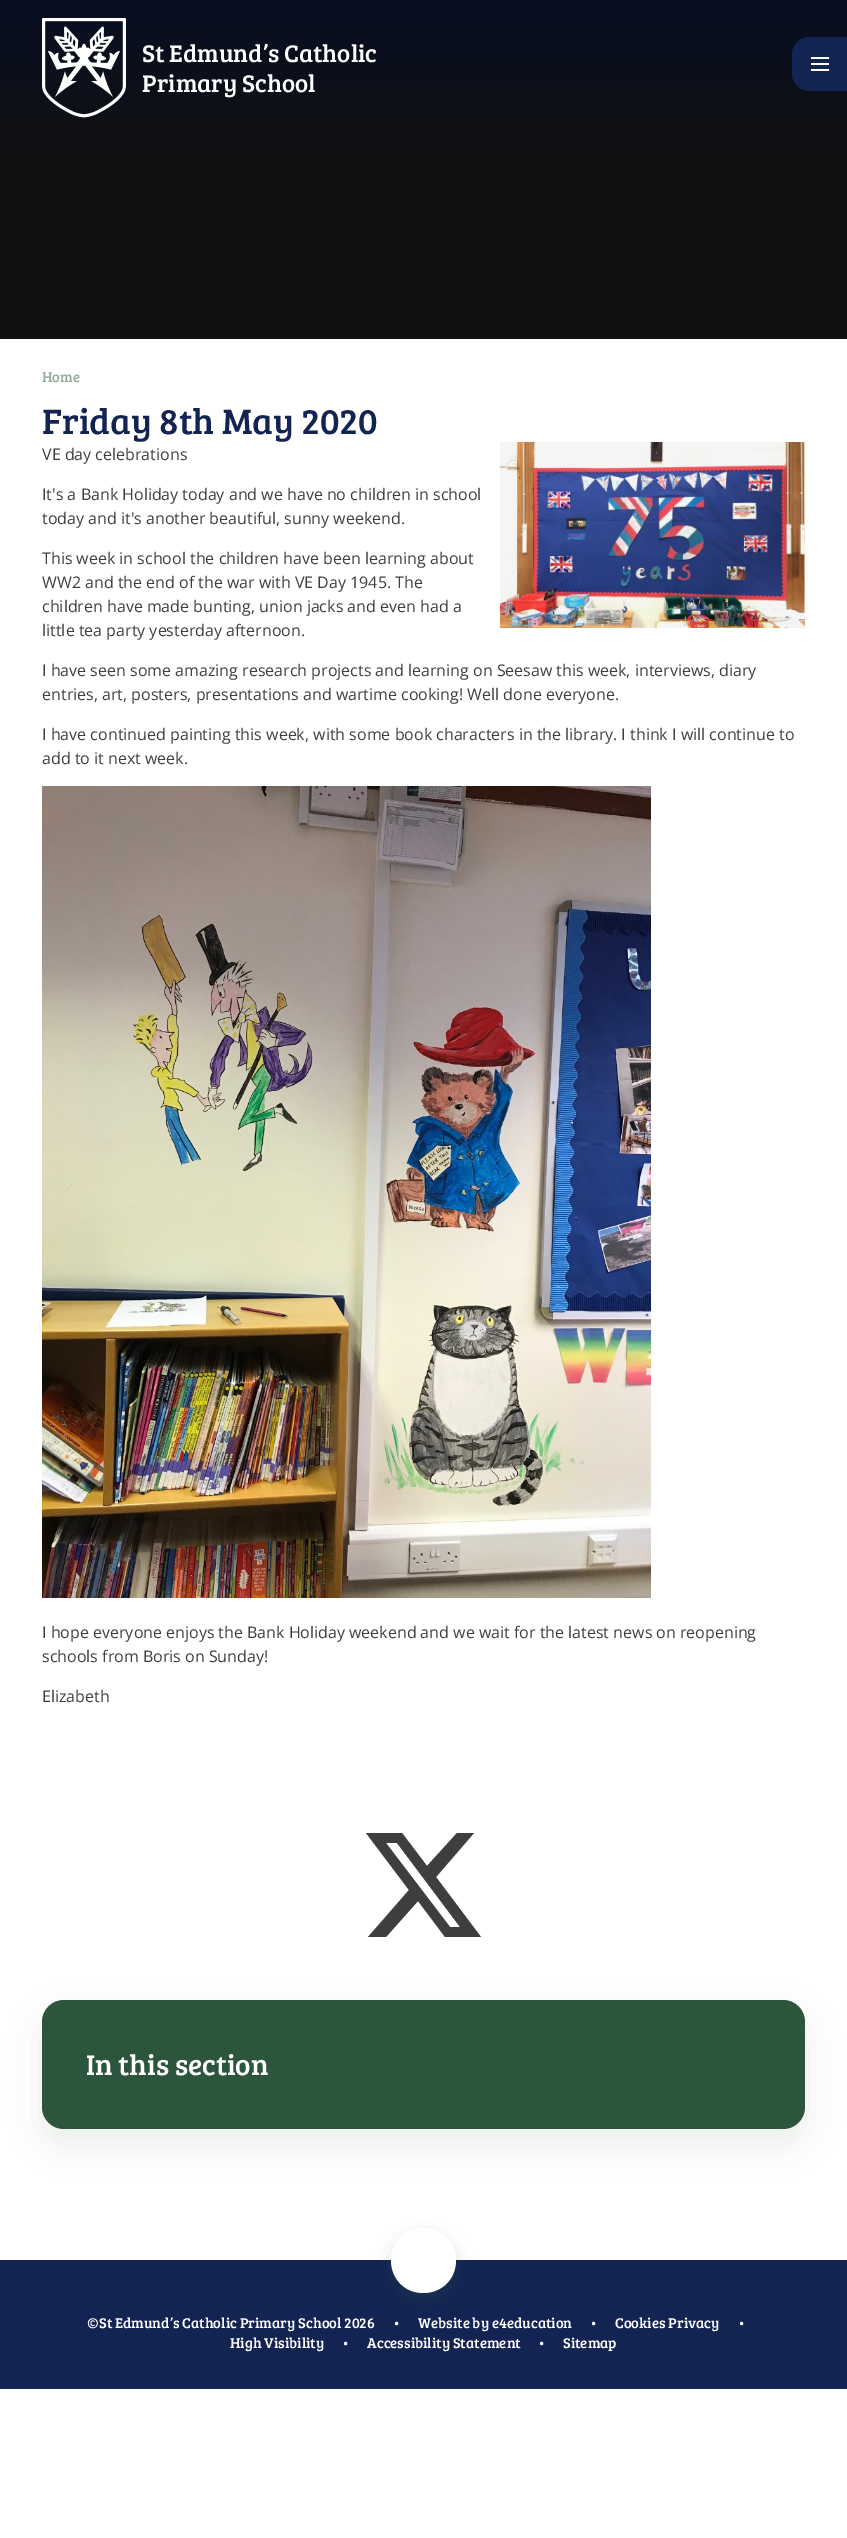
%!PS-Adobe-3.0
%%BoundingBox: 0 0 847 2538
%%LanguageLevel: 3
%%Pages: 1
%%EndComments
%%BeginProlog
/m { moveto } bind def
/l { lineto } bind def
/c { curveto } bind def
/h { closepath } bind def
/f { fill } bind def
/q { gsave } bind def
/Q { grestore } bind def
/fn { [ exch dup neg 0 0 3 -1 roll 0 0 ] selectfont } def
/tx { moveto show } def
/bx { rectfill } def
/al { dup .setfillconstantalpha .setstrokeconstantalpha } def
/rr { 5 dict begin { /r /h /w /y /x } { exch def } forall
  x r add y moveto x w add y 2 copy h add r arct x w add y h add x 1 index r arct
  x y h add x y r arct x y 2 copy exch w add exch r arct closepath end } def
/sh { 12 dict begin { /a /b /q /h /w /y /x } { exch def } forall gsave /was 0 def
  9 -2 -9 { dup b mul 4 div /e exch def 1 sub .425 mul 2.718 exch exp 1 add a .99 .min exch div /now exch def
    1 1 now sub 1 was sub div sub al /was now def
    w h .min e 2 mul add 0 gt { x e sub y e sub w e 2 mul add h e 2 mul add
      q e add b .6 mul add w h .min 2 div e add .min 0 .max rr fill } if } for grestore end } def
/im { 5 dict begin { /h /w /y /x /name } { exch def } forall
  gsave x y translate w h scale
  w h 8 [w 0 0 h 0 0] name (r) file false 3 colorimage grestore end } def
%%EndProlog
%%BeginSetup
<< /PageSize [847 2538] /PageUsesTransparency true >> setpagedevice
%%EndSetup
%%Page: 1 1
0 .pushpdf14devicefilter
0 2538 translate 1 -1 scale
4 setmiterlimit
1 setgray
0 0 847 2538 bx
q 0 0 m 847 0 l 847 339 l 0 339 l h clip newpath
<< /ShadingType 2 /ColorSpace /DeviceRGB /Coords [424 0 424 339] /Extend [true true] /Function << /FunctionType 3 /Domain [0 1] /Functions [<< /FunctionType 2 /Domain [0 1] /C0 [0.031 0.059 0.137] /C1 [0.063 0.067 0.075] /N 1 >> << /FunctionType 2 /Domain [0 1] /C0 [0.063 0.067 0.075] /C1 [0.063 0.067 0.075] /N 1 >>] /Bounds [0.45] /Encode [0 1 0 1] >> >> shfill Q
(image0.raw) 42 18 84 100 im
/BreeSerif-Regular 24.9 fn
(St Edmund’s Catholic) 142 62 tx
(Primary School) 142 92 tx
0.075 0.141 0.325 setrgbcolor
810 37 m 847 37 l 847 91 l 810 91 l 800 91 792 83 792 73 c 792 55 l 792 45 800 37 810 37 c h f
1 setgray
811 57 18 2 bx
811 63 18 2 bx
811 69 18 2 bx
/BreeSerif-Regular 14.6 fn
0.584 0.671 0.616 setrgbcolor
(Home) 42 382 tx
/BreeSerif-Regular 36.5 fn
0.075 0.141 0.325 setrgbcolor
(Friday 8th May 2020) 42 434 tx
/OpenSans-Regular 16 fn
0.243 setgray
(VE day celebrations) 42 460 tx
(image1.raw) 500 442 305 186 im
(It's a Bank Holiday today and we have no children in school) 42 500 tx
(today and it's another beautiful, sunny weekend.) 42 524 tx
(This week in school the children have been learning about) 42 564 tx
(WW2 and the end of the war with VE Day 1945. The) 42 588 tx
(children have made bunting, union jacks and even had a) 42 612 tx
(little tea party yesterday afternoon.) 42 636 tx
(I have seen some amazing research projects and learning on Seesaw this week, interviews, diary) 42 676 tx
(entries, art, posters, presentations and wartime cooking! Well done everyone.) 42 700 tx
(I have continued painting this week, with some book characters in the library. I think I will continue to) 42 740 tx
(add to it next week.) 42 764 tx
(image2.raw) 42 786 609 812 im
(I hope everyone enjoys the Bank Holiday weekend and we wait for the latest news on reopening) 42 1638 tx
(schools from Boris on Sunday!) 42 1662 tx
(Elizabeth) 42 1702 tx
457 1833 m 474 1833 l 436 1877 l 481 1937 l 445 1937 l 418 1901 l 386 1937 l 368 1937 l 409 1890 l 366 1833 l 402 1833 l 427 1866 l h 450 1927 m 460 1927 l 397 1843 l 386 1843 l h f
0.169 0.337 0.231 setrgbcolor
42 2016 763 129 22 16 0.1 sh
42 2000 763 129 22 rr f
/BreeSerif-Regular 29.25 fn
1 setgray
(In this section) 86 2075 tx
0.075 0.141 0.325 setrgbcolor
0 2260 847 129 bx
0.169 0.337 0.231 setrgbcolor
391 2236 65 65 32.5 8 0.2 sh
1 setgray
423 2293 m 442 2293 456 2279 456 2260 c 456 2242 442 2228 423 2228 c 405 2228 391 2242 391 2260 c 391 2279 405 2293 423 2293 c h f
/BreeSerif-Regular 14.6 fn
(©St Edmund’s Catholic Primary School 2026) 87 2328 tx
(•) 393 2328 tx
(Website by e4education) 418 2328 tx
(•) 590 2328 tx
(Cookies Privacy) 615 2328 tx
(•) 738 2328 tx
(High Visibility) 230 2348 tx
(•) 342 2348 tx
(Accessibility Statement) 367 2348 tx
(•) 538 2348 tx
(Sitemap) 563 2348 tx
.poppdf14devicefilter showpage
%%EOF
